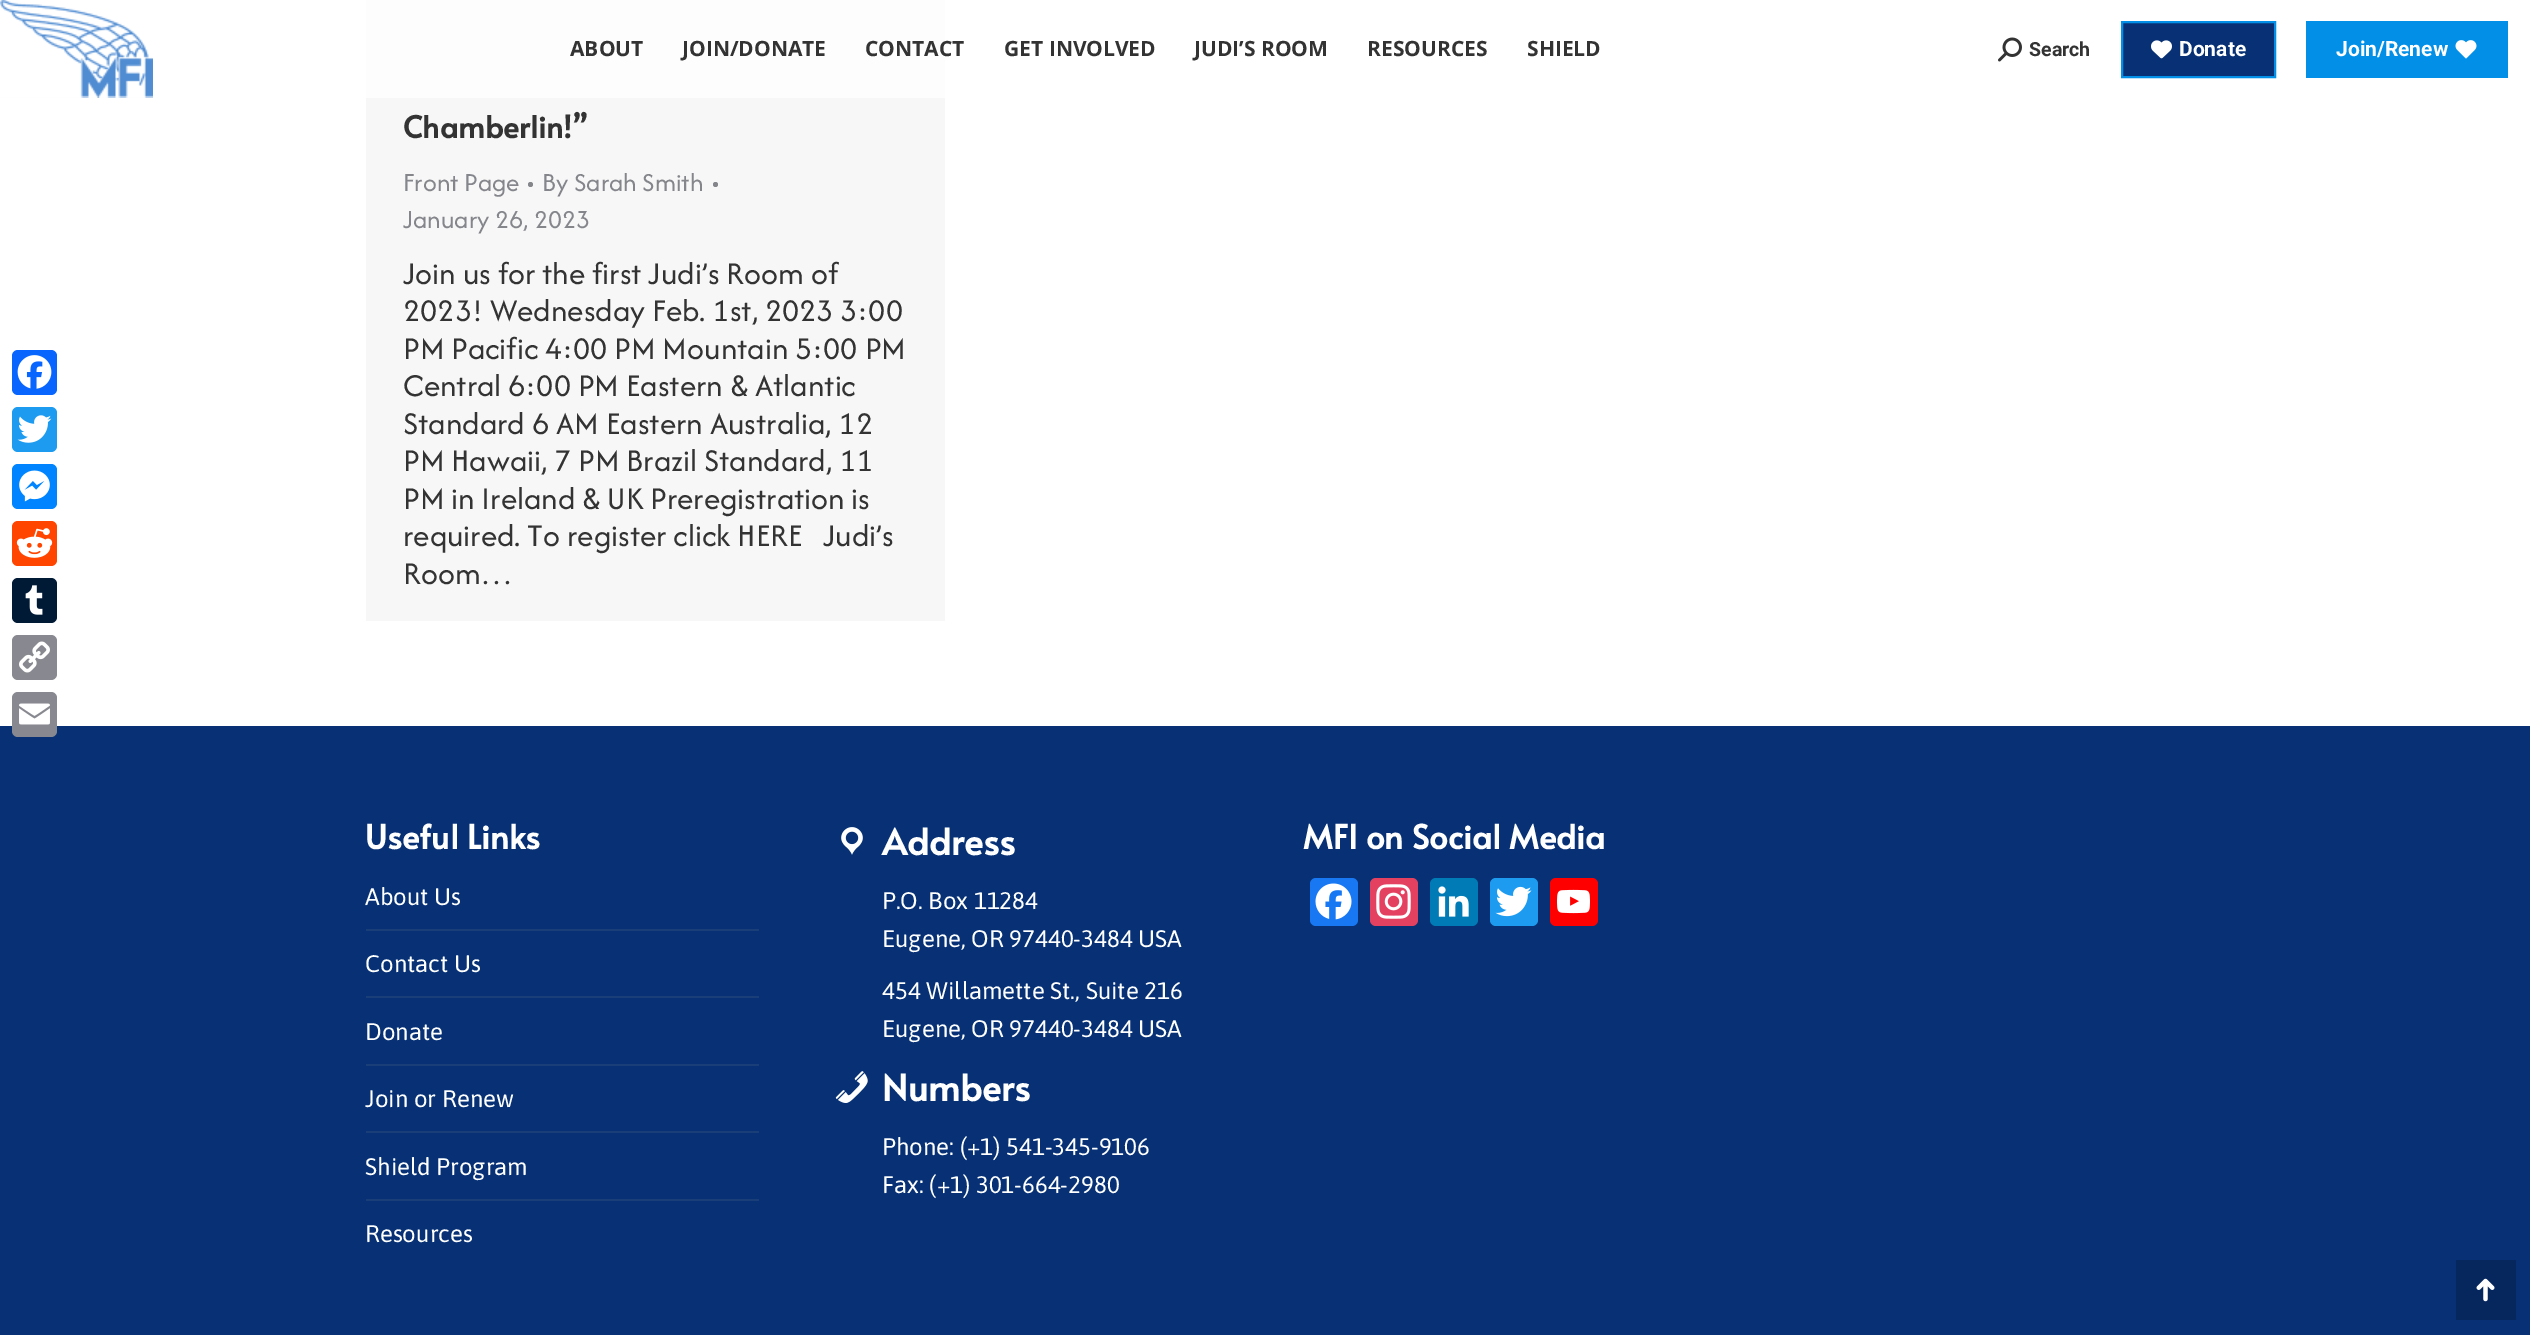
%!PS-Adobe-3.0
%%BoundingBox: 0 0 2530 1335
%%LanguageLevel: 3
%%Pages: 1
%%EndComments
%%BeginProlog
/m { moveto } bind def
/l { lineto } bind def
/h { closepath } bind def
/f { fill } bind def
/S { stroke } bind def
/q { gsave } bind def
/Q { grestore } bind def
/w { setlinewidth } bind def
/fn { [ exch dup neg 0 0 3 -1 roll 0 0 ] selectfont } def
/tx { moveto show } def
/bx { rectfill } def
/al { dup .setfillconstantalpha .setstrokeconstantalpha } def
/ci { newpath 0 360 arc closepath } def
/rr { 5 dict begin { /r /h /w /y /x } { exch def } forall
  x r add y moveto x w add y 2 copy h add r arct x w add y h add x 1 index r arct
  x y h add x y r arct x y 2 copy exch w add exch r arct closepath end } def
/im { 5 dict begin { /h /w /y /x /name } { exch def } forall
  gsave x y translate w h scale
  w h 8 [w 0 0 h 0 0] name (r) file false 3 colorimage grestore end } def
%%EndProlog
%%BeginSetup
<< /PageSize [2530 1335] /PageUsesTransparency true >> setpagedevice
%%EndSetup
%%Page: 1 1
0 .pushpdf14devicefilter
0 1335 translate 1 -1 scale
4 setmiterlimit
1 setgray
0 0 2530 1335 bx
0.969 setgray
366 0 579 621 bx
0.8 al
1 setgray
366 0 579 98 bx
1 al
(image0.raw) 0 0 153 98 im
/OpenSans-Bold 21 fn
0.2 setgray
(ABOUT) 570 56 tx
(JOIN/DONATE) 682 56 tx
(CONTACT) 865 56 tx
(GET INVOLVED) 1004 56 tx
(JUDI’S ROOM) 1194 56 tx
(RESOURCES) 1367 56 tx
(SHIELD) 1527 56 tx
(image1.raw) 1998 37 24 25 im
/Roboto-Bold 19.5 fn
(Search) 2029 56 tx
0.027 0.192 0.455 setrgbcolor
2122 22 m 2275 22 l 2275 77 l 2122 77 l h q f Q
0.004 0.561 0.906 setrgbcolor
2 w
S
(image2.raw) 2151 40 21 19 im
/Roboto-Bold 21 fn
1 setgray
(Donate) 2179 56 tx
0.004 0.561 0.906 setrgbcolor
2306 21 202 57 bx
1 setgray
(Join/Renew) 2336 56 tx
(image3.raw) 2455 40 22 19 im
0.031 0.4 1 setrgbcolor
12 350 45 45 6 rr f
(image4.raw) 17 355 35 34 im
0.114 0.608 0.941 setrgbcolor
12 407 45 45 6 rr f
(image5.raw) 17 415 35 28 im
0 0.518 1 setrgbcolor
12 464 45 45 6 rr f
(image6.raw) 19 470 31 32 im
1 0.271 0 setrgbcolor
12 521 45 45 6 rr f
(image7.raw) 16 528 37 30 im
0 0.098 0.208 setrgbcolor
12 578 45 45 6 rr f
(image8.raw) 25 585 18 30 im
0.533 0.537 0.565 setrgbcolor
12 635 45 45 6 rr f
(image9.raw) 19 641 31 32 im
0.027 0.192 0.455 setrgbcolor
0 726 2530 609 bx
0.533 0.537 0.565 setrgbcolor
12 692 45 45 6 rr f
(image10.raw) 19 703 31 22 im
/Alata-Bold 30 fn
0.2 setgray
(Chamberlin!”) 403 138 tx
/Afacad-Regular 27 fn
0.522 0.525 0.549 setrgbcolor
(Front Page) 403 191 tx
530.5 184.5 2.5 ci f
(By Sarah Smith) 542 191 tx
715.5 184.5 2.5 ci f
(January 26, 2023) 403 228 tx
/Afacad-Regular 33 fn
0.2 setgray
(Join us for the first Judi’s Room of) 403 284 tx
(2023! Wednesday Feb. 1st, 2023 3:00) 403 321 tx
(PM Pacific 4:00 PM Mountain 5:00 PM) 403 359 tx
(Central 6:00 PM Eastern & Atlantic) 403 396 tx
(Standard 6 AM Eastern Australia, 12) 403 434 tx
(PM Hawaii, 7 PM Brazil Standard, 11) 403 471 tx
(PM in Ireland & UK Preregistration is) 403 509 tx
(required. To register click HERE   Judi’s) 403 546 tx
(Room…) 403 584 tx
/Alata-Bold 33 fn
1 setgray
(Useful Links) 365 849 tx
/Asap-Regular 24 fn
(About Us) 365 905 tx
0.102 0.243 0.471 setrgbcolor
366 929 393 2 bx
1 setgray
(Contact Us) 365 972 tx
0.102 0.243 0.471 setrgbcolor
366 996 393 2 bx
1 setgray
(Donate) 365 1040 tx
0.102 0.243 0.471 setrgbcolor
366 1064 393 2 bx
1 setgray
(Join or Renew) 365 1107 tx
0.102 0.243 0.471 setrgbcolor
366 1131 393 2 bx
1 setgray
(Shield Program) 365 1175 tx
0.102 0.243 0.471 setrgbcolor
366 1199 393 2 bx
1 setgray
(Resources) 365 1242 tx
(image11.raw) 841 827 22 28 im
/Alata-Bold 36 fn
(Address) 882 855 tx
/Asap-Regular 24 fn
(P.O. Box 11284) 882 909 tx
(Eugene, OR 97440-3484 USA) 882 947 tx
(454 Willamette St., Suite 216) 882 999 tx
(Eugene, OR 97440-3484 USA) 882 1037 tx
(image12.raw) 835 1071 33 32 im
/Alata-Bold 36 fn
(Numbers) 882 1101 tx
/Asap-Regular 24 fn
(Phone: \(+1\) 541-345-9106) 882 1155 tx
(Fax: \(+1\) 301-664-2980) 882 1193 tx
/Alata-Bold 33 fn
(MFI on Social Media) 1303 849 tx
0.094 0.467 0.949 setrgbcolor
1310 878 48 48 6 rr f
(image13.raw) 1315 883 37 37 im
0.894 0.251 0.373 setrgbcolor
1370 878 48 48 6 rr f
(image14.raw) 1376 884 35 35 im
0 0.482 0.71 setrgbcolor
1430 878 48 48 6 rr f
(image15.raw) 1438 886 31 31 im
0.114 0.608 0.941 setrgbcolor
1490 878 48 48 6 rr f
(image16.raw) 1495 886 37 31 im
1 0 0 setrgbcolor
1550 878 48 48 6 rr f
(image17.raw) 1557 889 33 25 im
0.024 0.153 0.365 setrgbcolor
2456 1260 60 60 1.5 rr f
(image18.raw) 2476 1278 19 24 im
.poppdf14devicefilter showpage
%%EOF
